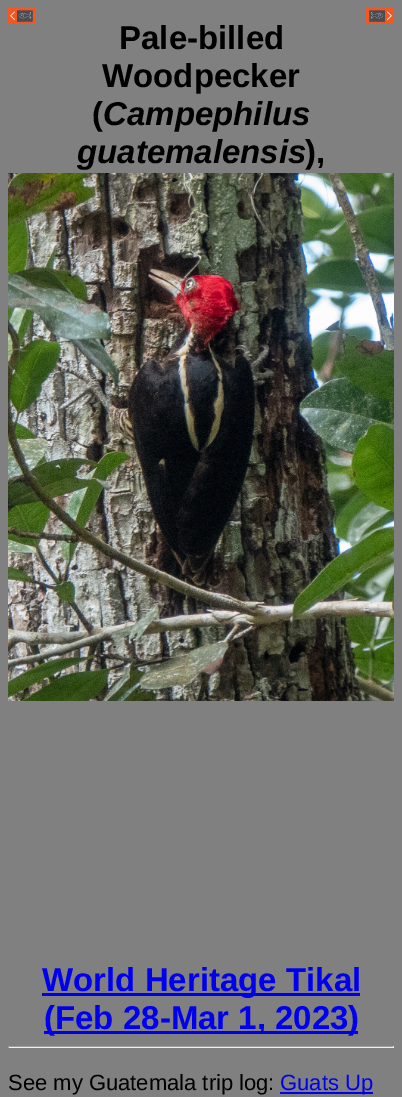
%!PS-Adobe-3.0
%%BoundingBox: 0 0 402 1097
%%LanguageLevel: 3
%%Pages: 1
%%EndComments
%%BeginProlog
/fn { [ exch dup neg 0 0 3 -1 roll 0 0 ] selectfont } def
/tx { moveto show } def
/bx { rectfill } def
/im { 5 dict begin { /h /w /y /x /name } { exch def } forall
  gsave x y translate w h scale
  w h 8 [w 0 0 h 0 0] name (r) file false 3 colorimage grestore end } def
%%EndProlog
%%BeginSetup
<< /PageSize [402 1097] >> setpagedevice
%%EndSetup
%%Page: 1 1
0 1097 translate 1 -1 scale
4 setmiterlimit
0.502 setgray
0 0 402 1097 bx
(image0.raw) 8 8 28 15 im
(image1.raw) 366 8 28 15 im
/LiberationSans-Bold 33 fn
0 setgray
(Pale-billed) 119 49 tx
(Woodpecker) 102 87 tx
(\() 92 125 tx
/LiberationSans-BoldItalic 33 fn
(Campephilus) 103 125 tx
(guatemalensis) 77 163 tx
/LiberationSans-Bold 33 fn
(\),) 305 163 tx
(image2.raw) 8 173 386 528 im
0 0 0.933 setrgbcolor
42 993 318 3 bx
(World Heritage Tikal) 42 991 tx
44 1031 314 3 bx
(\(Feb 28-Mar 1, 2023\)) 44 1029 tx
0.624 setgray
8 1046 386 1 bx
0.933 setgray
393 1046 1 2 bx
8 1047 386 1 bx
0.624 setgray
8 1046 1 2 bx
/LiberationSans-Regular 22 fn
0 setgray
(See my Guatemala trip log:) 8 1090 tx
0 0 0.933 setrgbcolor
280 1092 93 2 bx
(Guats Up) 280 1090 tx
showpage
%%EOF
